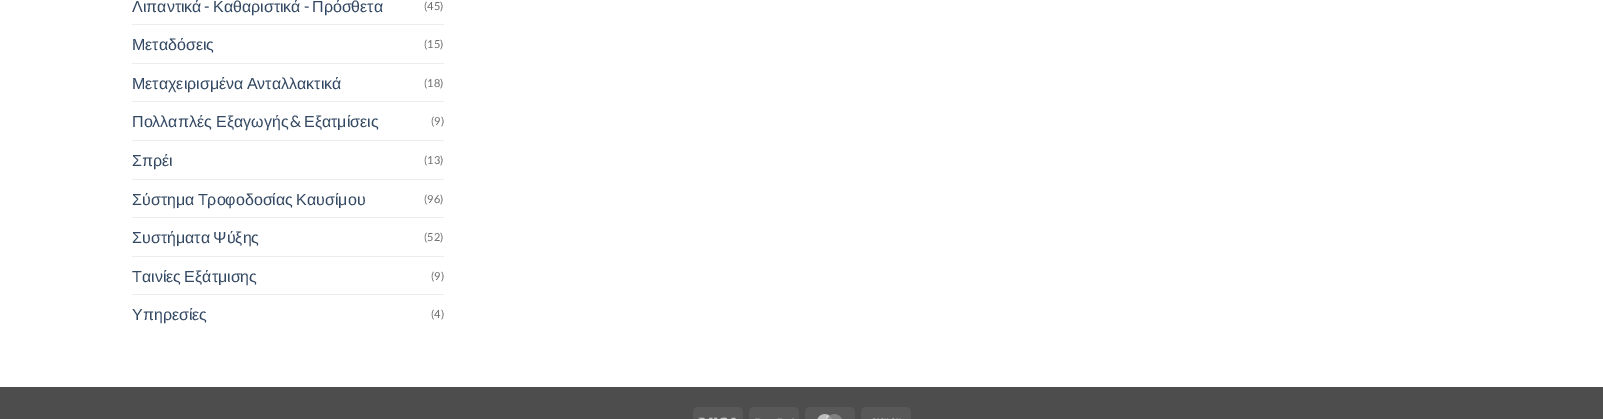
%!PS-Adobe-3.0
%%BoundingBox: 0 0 1603 419
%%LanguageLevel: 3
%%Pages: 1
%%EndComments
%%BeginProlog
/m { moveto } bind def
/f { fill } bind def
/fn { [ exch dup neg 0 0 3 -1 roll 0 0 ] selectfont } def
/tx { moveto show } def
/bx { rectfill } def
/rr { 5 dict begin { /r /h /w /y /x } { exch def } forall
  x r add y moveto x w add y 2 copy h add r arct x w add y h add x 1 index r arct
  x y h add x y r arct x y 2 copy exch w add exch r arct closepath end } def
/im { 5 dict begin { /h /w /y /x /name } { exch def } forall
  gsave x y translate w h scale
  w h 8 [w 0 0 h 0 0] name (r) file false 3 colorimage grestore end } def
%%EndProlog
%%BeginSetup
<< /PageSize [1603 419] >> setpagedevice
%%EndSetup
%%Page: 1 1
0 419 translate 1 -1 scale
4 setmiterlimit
1 setgray
0 0 1603 419 bx
/LiberationSans-Regular 16 fn
0.2 0.282 0.384 setrgbcolor
(Λιπαντικά) 132 12 tx
/Lato-Regular 16 fn
(-) 204 12 tx
/LiberationSans-Regular 16 fn
(Καθαριστικά) 213 12 tx
/Lato-Regular 16 fn
(-) 304 12 tx
/LiberationSans-Regular 16 fn
(Πρόσθετα) 312 12 tx
/Lato-Regular 11 fn
0.431 setgray
(\(45\)) 424 10 tx
0.925 setgray
132 24 312 1 bx
/LiberationSans-Regular 16 fn
0.2 0.282 0.384 setrgbcolor
(Μεταδόσεις) 132 50 tx
/Lato-Regular 11 fn
0.431 setgray
(\(15\)) 424 48 tx
0.925 setgray
132 63 312 1 bx
/LiberationSans-Regular 16 fn
0.2 0.282 0.384 setrgbcolor
132 89 m -1 0 32 (Μεταχειρισμένα Ανταλλακτικά) widthshow
/Lato-Regular 11 fn
0.431 setgray
(\(18\)) 424 87 tx
0.925 setgray
132 101 312 1 bx
/LiberationSans-Regular 16 fn
0.2 0.282 0.384 setrgbcolor
(Πολλαπλές Εξαγωγής) 132 127 tx
/Lato-Regular 16 fn
(&) 290 127 tx
/LiberationSans-Regular 16 fn
(Εξατμίσεις) 304 127 tx
/Lato-Regular 11 fn
0.431 setgray
(\(9\)) 431 125 tx
0.925 setgray
132 140 312 1 bx
/LiberationSans-Regular 16 fn
0.2 0.282 0.384 setrgbcolor
(Σπρέι) 132 166 tx
/Lato-Regular 11 fn
0.431 setgray
(\(13\)) 424 164 tx
0.925 setgray
132 179 312 1 bx
/LiberationSans-Regular 16 fn
0.2 0.282 0.384 setrgbcolor
132 205 m -1 0 32 (Σύστημα Τροφοδοσίας Καυσίμου) widthshow
/Lato-Regular 11 fn
0.431 setgray
(\(96\)) 424 203 tx
0.925 setgray
132 217 312 1 bx
/LiberationSans-Regular 16 fn
0.2 0.282 0.384 setrgbcolor
132 243 m -1 0 32 (Συστήματα Ψύξης) widthshow
/Lato-Regular 11 fn
0.431 setgray
(\(52\)) 424 241 tx
0.925 setgray
132 256 312 1 bx
/LiberationSans-Regular 16 fn
0.2 0.282 0.384 setrgbcolor
132 282 m -1 0 32 (Ταινίες Εξάτμισης) widthshow
/Lato-Regular 11 fn
0.431 setgray
(\(9\)) 431 280 tx
0.925 setgray
132 294 312 1 bx
/LiberationSans-Regular 16 fn
0.2 0.282 0.384 setrgbcolor
(Υπηρεσίες) 132 320 tx
/Lato-Regular 11 fn
0.431 setgray
(\(4\)) 431 318 tx
0.302 setgray
0 387 1603 32 bx
0.345 setgray
693 407 50 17 5 rr f
(image0.raw) 698 417 38 2 im
749 407 50 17 5 rr f
(image1.raw) 755 418 39 1 im
805 407 50 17 5 rr f
(image2.raw) 817 414 25 5 im
861 407 50 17 5 rr f
(image3.raw) 872 418 29 1 im
showpage
%%EOF
